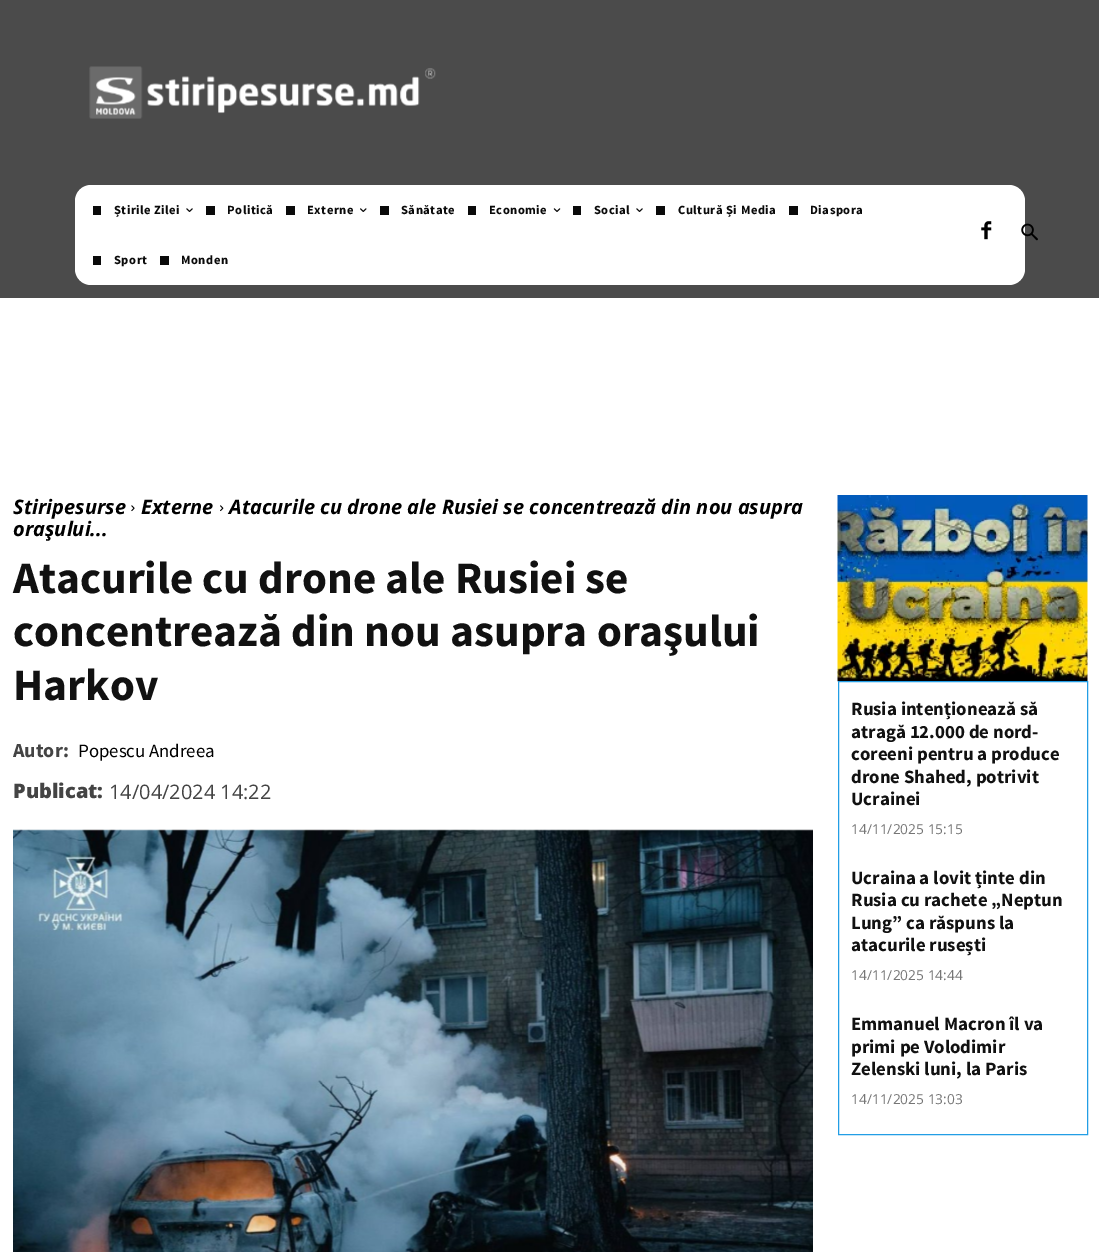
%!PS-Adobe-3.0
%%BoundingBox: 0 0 1099 1252
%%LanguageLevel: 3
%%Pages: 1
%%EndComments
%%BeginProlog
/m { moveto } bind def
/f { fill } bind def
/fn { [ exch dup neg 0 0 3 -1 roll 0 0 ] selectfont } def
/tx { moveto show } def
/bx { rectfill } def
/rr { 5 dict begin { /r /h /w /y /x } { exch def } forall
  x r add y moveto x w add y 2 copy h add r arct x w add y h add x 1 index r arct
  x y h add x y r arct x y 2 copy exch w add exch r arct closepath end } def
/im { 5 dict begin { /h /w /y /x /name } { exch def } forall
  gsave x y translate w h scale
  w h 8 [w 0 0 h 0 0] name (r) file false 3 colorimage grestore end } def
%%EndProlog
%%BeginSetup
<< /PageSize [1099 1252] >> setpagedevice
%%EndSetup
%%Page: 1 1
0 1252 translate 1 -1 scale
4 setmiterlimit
1 setgray
0 0 1099 1252 bx
0.294 setgray
0 0 1099 298 bx
(image0.raw) 89 66 347 53 im
1 setgray
75 185 950 100 16 rr f
0.039 setgray
93 206 8 9 bx
/SourceSansPro-Bold 12.5 fn
114 214 m 0.5 0 (Știrile Zilei) ashow
(image1.raw) 186 208 7 4 im
206 206 9 9 bx
227 214 m 0.5 0 (Politică) ashow
286 206 9 9 bx
307 214 m 0.5 0 (Externe) ashow
(image2.raw) 360 208 7 4 im
380 206 9 9 bx
401 214 m 0.5 0 (Sănătate) ashow
468 206 8 9 bx
489 214 m 0.5 0 (Economie) ashow
(image3.raw) 553 208 8 4 im
573 206 8 9 bx
594 214 m 0.5 0 (Social) ashow
(image1.raw) 636 208 7 4 im
656 206 9 9 bx
678 214 m 0.5 0 (Cultură Și Media) ashow
789 206 9 9 bx
810 214 m 0.5 0 (Diaspora) ashow
93 256 8 9 bx
114 264 m 0.5 0 (Sport) ashow
160 256 9 9 bx
181 264 m 0.5 0 (Monden) ashow
(image4.raw) 981 221 11 19 im
(image5.raw) 1021 223 17 18 im
/OpenSans-BoldItalic 20 fn
0 setgray
(Stiripesurse) 13 514 tx
(image6.raw) 131 505 4 7 im
(Externe) 141 514 tx
(image7.raw) 220 505 4 7 im
(Atacurile cu drone ale Rusiei se concentrează din nou asupra) 229 514 tx
(oraşului...) 13 536 tx
/SourceSansPro-Bold 45 fn
0.067 setgray
(Atacurile cu drone ale Rusiei se) 13 593 tx
(concentrează din nou asupra oraşului) 13 646 tx
(Harkov) 13 700 tx
/SourceSansPro-Bold 20 fn
0.267 setgray
(Autor:) 13 757 tx
/SourceSansPro-Regular 18.75 fn
0 setgray
(Popescu Andreea) 78 757 tx
/OpenSans-ExtraBold 20 fn
0.267 setgray
(Publicat:) 13 798 tx
/OpenSans-Regular 20 fn
(14/04/2024 14:22) 109 799 tx
(image8.raw) 13 829 800 423 im
(image9.raw) 837 495 251 187 im
0.137 0.62 0.898 setrgbcolor
838.5 681.5 249 453 rectstroke
/SourceSansPro-Bold 18.75 fn
0.067 setgray
(Rusia intenționează să) 851 715 tx
(atragă 12.000 de nord-) 851 738 tx
(coreeni pentru a produce) 851 760 tx
(drone Shahed, potrivit) 851 783 tx
(Ucrainei) 851 805 tx
/OpenSans-Regular 13.75 fn
0.463 setgray
(14/11/2025 15:15) 851 834 tx
/SourceSansPro-Bold 18.75 fn
0.067 setgray
(Ucraina a lovit ținte din) 851 884 tx
(Rusia cu rachete „Neptun) 851 906 tx
(Lung” ca răspuns la) 851 929 tx
(atacurile rusești) 851 951 tx
/OpenSans-Regular 13.75 fn
0.463 setgray
(14/11/2025 14:44) 851 980 tx
/SourceSansPro-Bold 18.75 fn
0.067 setgray
(Emmanuel Macron îl va) 851 1030 tx
(primi pe Volodimir) 851 1053 tx
(Zelenski luni, la Paris) 851 1075 tx
/OpenSans-Regular 13.75 fn
0.463 setgray
(14/11/2025 13:03) 851 1104 tx
showpage
%%EOF
